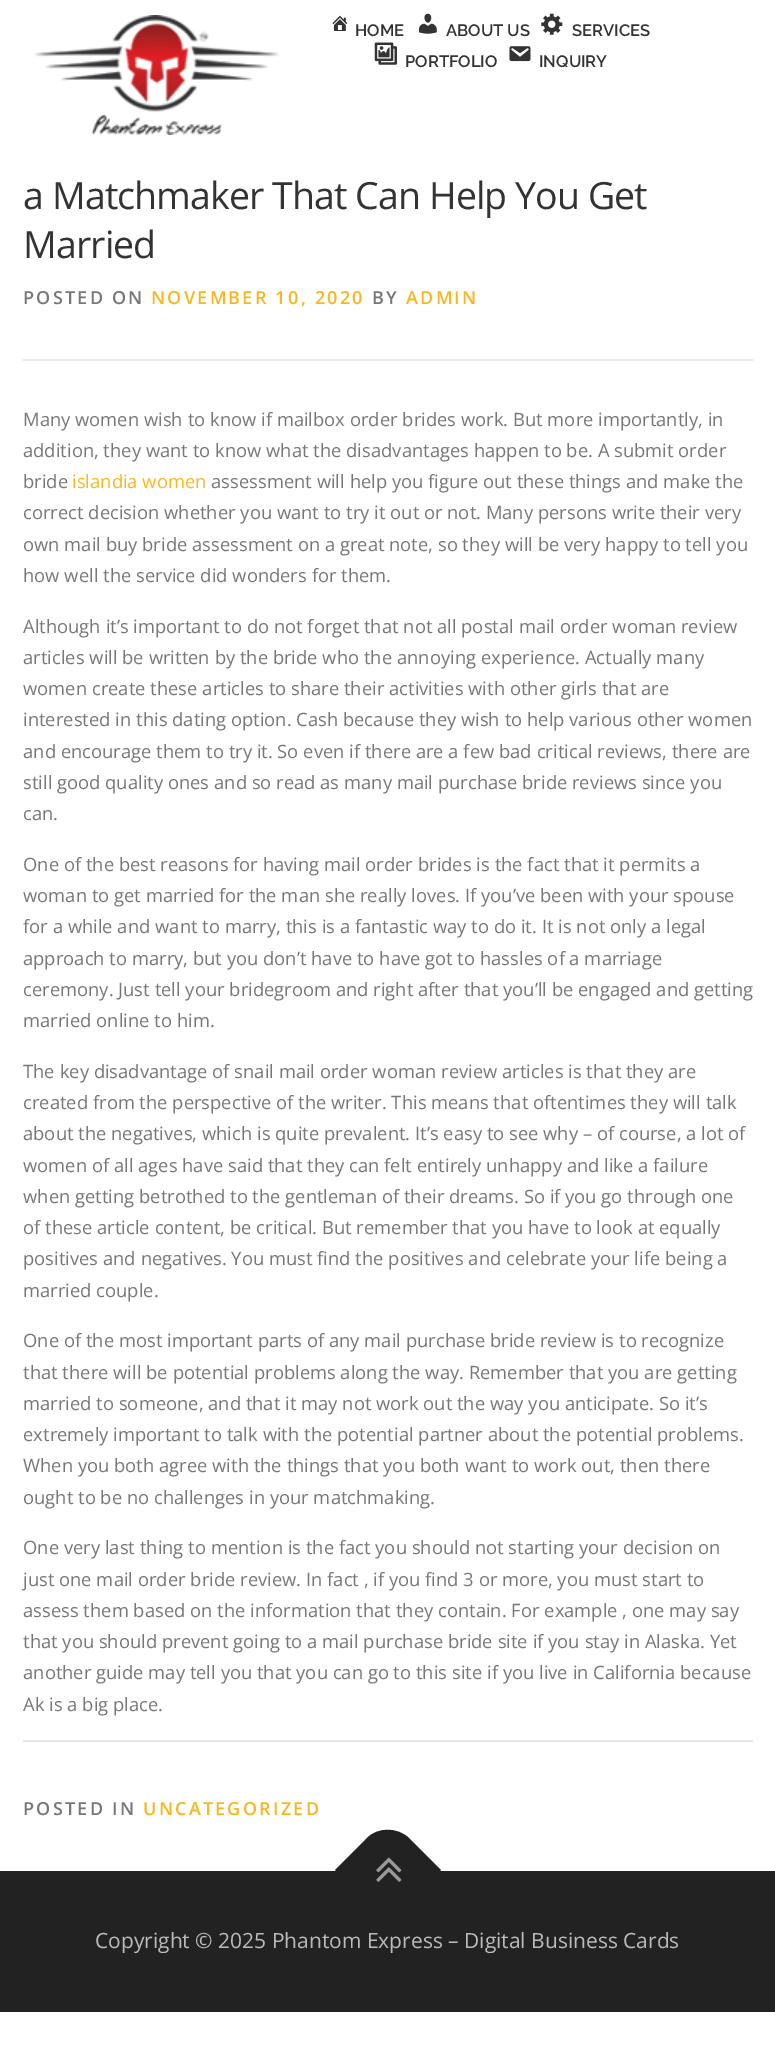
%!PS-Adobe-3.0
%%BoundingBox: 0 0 775 2063
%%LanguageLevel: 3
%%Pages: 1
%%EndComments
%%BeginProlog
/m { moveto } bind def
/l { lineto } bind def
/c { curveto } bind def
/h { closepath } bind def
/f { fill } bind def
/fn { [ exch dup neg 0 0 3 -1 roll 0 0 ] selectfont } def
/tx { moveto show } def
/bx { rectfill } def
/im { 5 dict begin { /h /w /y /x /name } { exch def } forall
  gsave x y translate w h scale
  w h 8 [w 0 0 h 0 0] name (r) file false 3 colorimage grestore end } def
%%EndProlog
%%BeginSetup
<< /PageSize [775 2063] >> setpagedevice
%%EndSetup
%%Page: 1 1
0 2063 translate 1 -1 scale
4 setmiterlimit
1 setgray
0 0 775 2063 bx
(image0.raw) 34 15 246 120 im
(image1.raw) 332 15 16 16 im
/Raleway-SemiBold 16.5 fn
0.2 setgray
(HOME) 355 36 tx
(image2.raw) 418 13 19 21 im
(ABOUT US) 446 36 tx
(image3.raw) 541 13 22 22 im
(SERVICES) 572 36 tx
(image4.raw) 374 42 23 23 im
(PORTFOLIO) 405 67 tx
(image5.raw) 509 46 22 16 im
(INQUIRY) 539 67 tx
/OpenSans-Regular 37.5 fn
23 209 m -0.9 0 (a Matchmaker That Can Help You Get) ashow
23 258 m -0.9 0 (Married) ashow
0.914 setgray
23 359 730 2 bx
/OpenSans-SemiBold 18 fn
0.467 setgray
23 304 m 2.25 0 (POSTED ON) ashow
0.973 0.718 0.122 setrgbcolor
151 304 m 2.25 0 (NOVEMBER 10, 2020) ashow
0.467 setgray
372 304 m 2.25 0 (BY) ashow
0.973 0.718 0.122 setrgbcolor
406 304 m 2.25 0 (ADMIN) ashow
/OpenSans-Regular 18.4 fn
0.467 setgray
(Many women wish to know if mailbox order brides work. But more importantly, in) 23 426 tx
(addition, they want to know what the disadvantages happen to be. A submit order) 23 457 tx
(bride) 23 488 tx
0.973 0.718 0.122 setrgbcolor
(islandia women) 72 488 tx
0.467 setgray
(assessment will help you figure out these things and make the) 211 488 tx
(correct decision whether you want to try it out or not. Many persons write their very) 23 519 tx
(own mail buy bride assessment on a great note, so they will be very happy to tell you) 23 551 tx
(how well the service did wonders for them.) 23 582 tx
(Although it’s important to do not forget that not all postal mail order woman review) 23 633 tx
(articles will be written by the bride who the annoying experience. Actually many) 23 664 tx
(women create these articles to share their activities with other girls that are) 23 695 tx
(interested in this dating option. Cash because they wish to help various other women) 23 726 tx
(and encourage them to try it. So even if there are a few bad critical reviews, there are) 23 758 tx
(still good quality ones and so read as many mail purchase bride reviews since you) 23 789 tx
(can.) 23 820 tx
(One of the best reasons for having mail order brides is the fact that it permits a) 23 871 tx
(woman to get married for the man she really loves. If you’ve been with your spouse) 23 902 tx
(for a while and want to marry, this is a fantastic way to do it. It is not only a legal) 23 933 tx
(approach to marry, but you don’t have to have got to hassles of a marriage) 23 965 tx
(ceremony. Just tell your bridegroom and right after that you’ll be engaged and getting) 23 996 tx
(married online to him.) 23 1027 tx
(The key disadvantage of snail mail order woman review articles is that they are) 23 1078 tx
(created from the perspective of the writer. This means that oftentimes they will talk) 23 1109 tx
(about the negatives, which is quite prevalent. It’s easy to see why – of course, a lot of) 23 1140 tx
(women of all ages have said that they can felt entirely unhappy and like a failure) 23 1172 tx
(when getting betrothed to the gentleman of their dreams. So if you go through one) 23 1203 tx
(of these article content, be critical. But remember that you have to look at equally) 23 1234 tx
(positives and negatives. You must find the positives and celebrate your life being a) 23 1265 tx
(married couple.) 23 1297 tx
(One of the most important parts of any mail purchase bride review is to recognize) 23 1347 tx
(that there will be potential problems along the way. Remember that you are getting) 23 1379 tx
(married to someone, and that it may not work out the way you anticipate. So it’s) 23 1410 tx
(extremely important to talk with the potential partner about the potential problems.) 23 1441 tx
(When you both agree with the things that you both want to work out, then there) 23 1472 tx
(ought to be no challenges in your matchmaking.) 23 1504 tx
(One very last thing to mention is the fact you should not starting your decision on) 23 1554 tx
(just one mail order bride review. In fact , if you find 3 or more, you must start to) 23 1586 tx
(assess them based on the information that they contain. For example , one may say) 23 1617 tx
(that you should prevent going to a mail purchase bride site if you stay in Alaska. Yet) 23 1648 tx
(another guide may tell you that you can go to this site if you live in California because) 23 1679 tx
(Ak is a big place.) 23 1711 tx
0.914 setgray
23 1740 730 2 bx
/OpenSans-SemiBold 18 fn
0.467 setgray
23 1815 m 2.25 0 (POSTED IN) ashow
0.973 0.718 0.122 setrgbcolor
143 1815 m 2.25 0 (UNCATEGORIZED) ashow
0.133 setgray
0 1871 775 141 bx
335 1870 m 367 1838 l 378 1827 397 1827 409 1838 c 441 1870 l 388 1923 l h f
(image6.raw) 376 1857 26 25 im
/OpenSans-Regular 21 fn
0.733 setgray
(Copyright © 2025 Phantom Express – Digital Business Cards) 95 1948 tx
showpage
%%EOF
